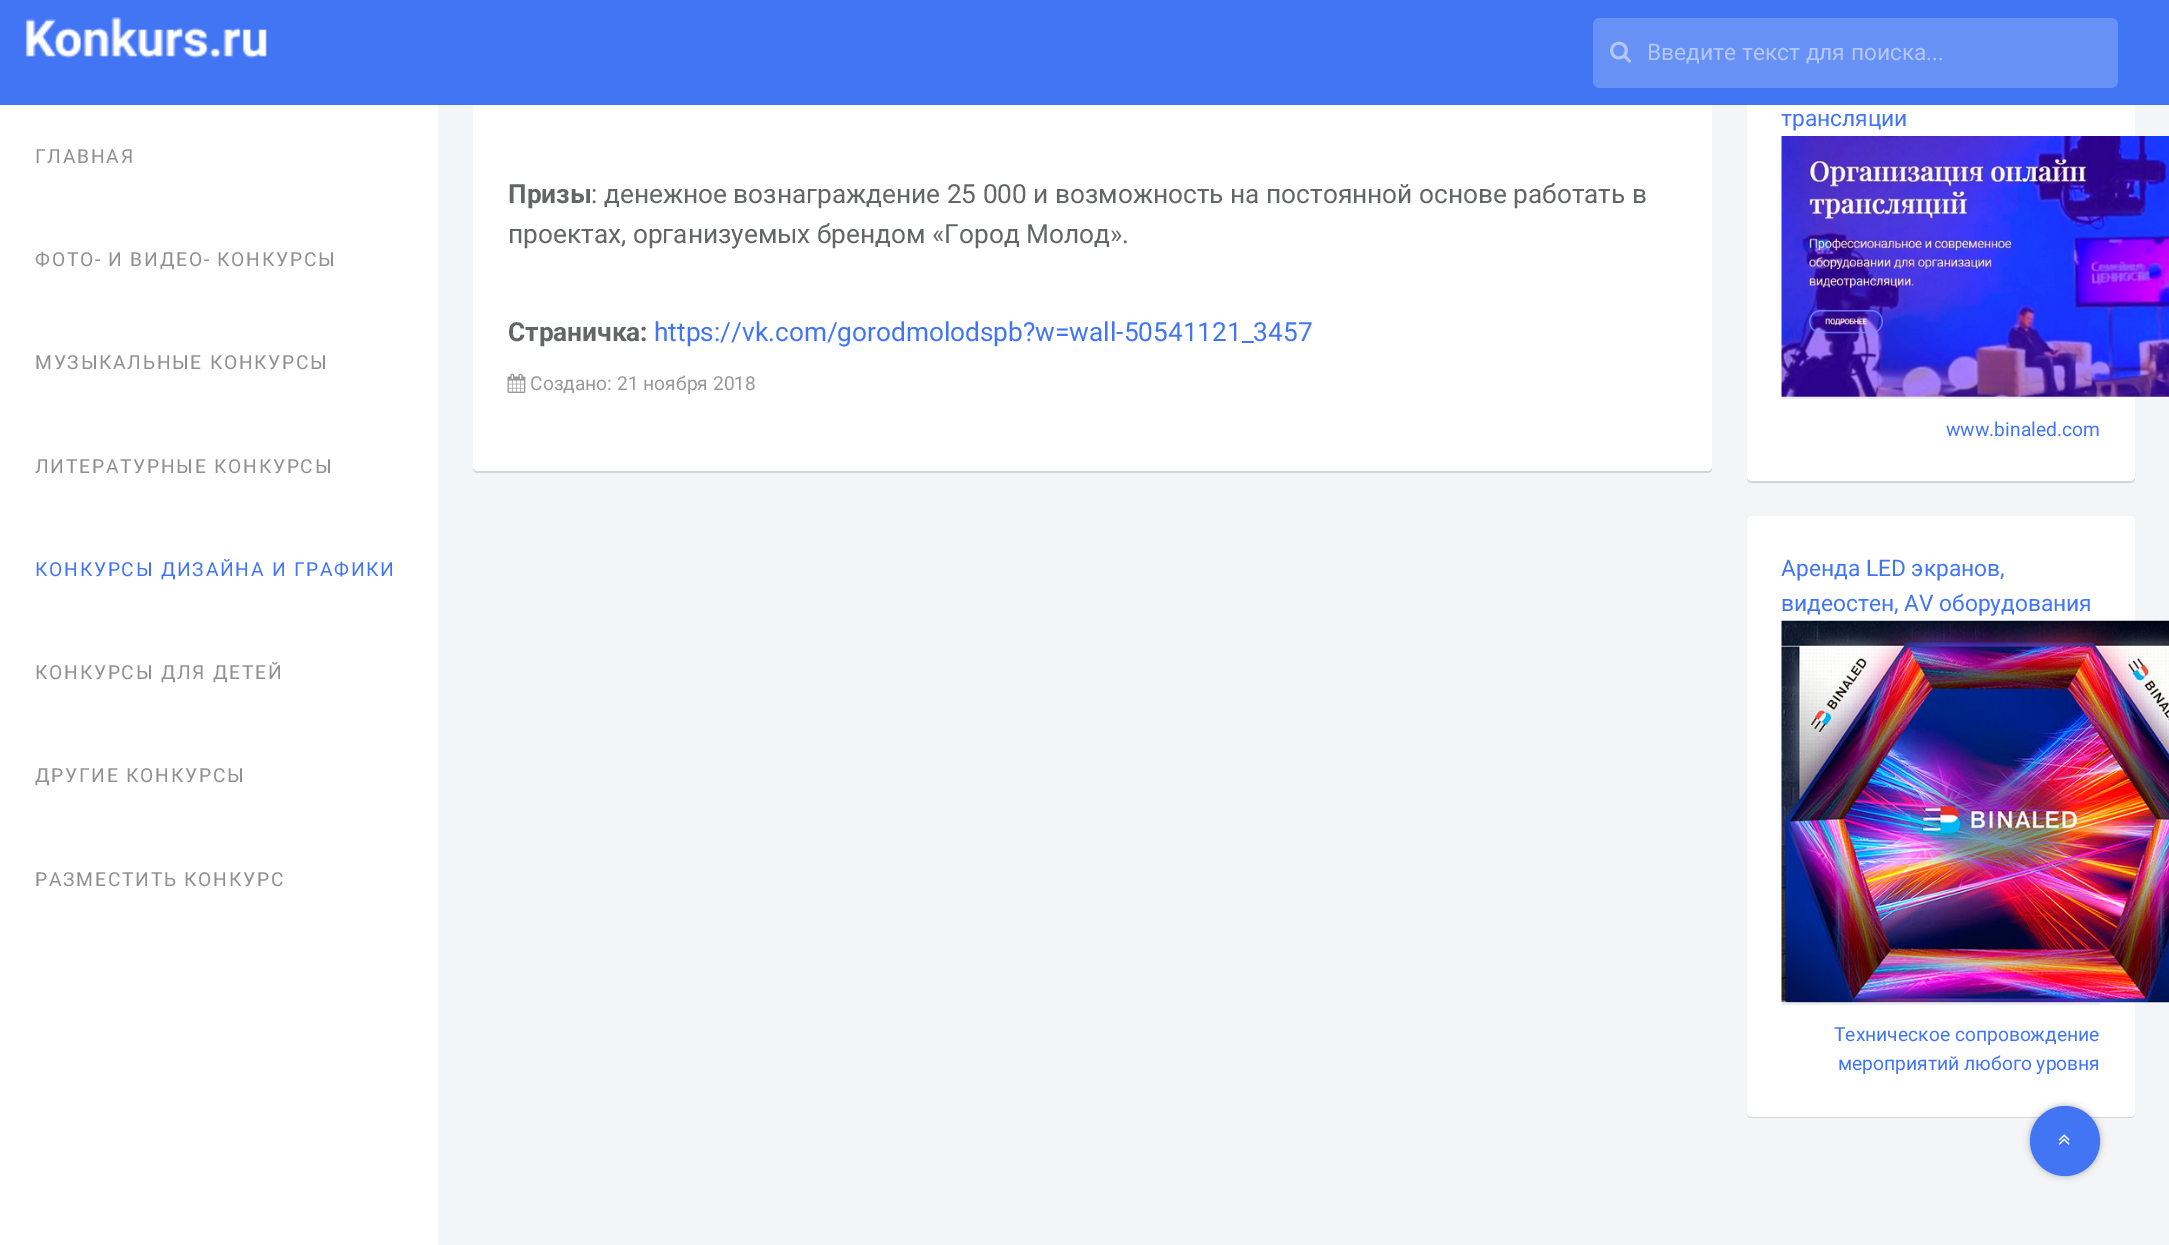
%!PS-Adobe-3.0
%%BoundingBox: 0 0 2169 1245
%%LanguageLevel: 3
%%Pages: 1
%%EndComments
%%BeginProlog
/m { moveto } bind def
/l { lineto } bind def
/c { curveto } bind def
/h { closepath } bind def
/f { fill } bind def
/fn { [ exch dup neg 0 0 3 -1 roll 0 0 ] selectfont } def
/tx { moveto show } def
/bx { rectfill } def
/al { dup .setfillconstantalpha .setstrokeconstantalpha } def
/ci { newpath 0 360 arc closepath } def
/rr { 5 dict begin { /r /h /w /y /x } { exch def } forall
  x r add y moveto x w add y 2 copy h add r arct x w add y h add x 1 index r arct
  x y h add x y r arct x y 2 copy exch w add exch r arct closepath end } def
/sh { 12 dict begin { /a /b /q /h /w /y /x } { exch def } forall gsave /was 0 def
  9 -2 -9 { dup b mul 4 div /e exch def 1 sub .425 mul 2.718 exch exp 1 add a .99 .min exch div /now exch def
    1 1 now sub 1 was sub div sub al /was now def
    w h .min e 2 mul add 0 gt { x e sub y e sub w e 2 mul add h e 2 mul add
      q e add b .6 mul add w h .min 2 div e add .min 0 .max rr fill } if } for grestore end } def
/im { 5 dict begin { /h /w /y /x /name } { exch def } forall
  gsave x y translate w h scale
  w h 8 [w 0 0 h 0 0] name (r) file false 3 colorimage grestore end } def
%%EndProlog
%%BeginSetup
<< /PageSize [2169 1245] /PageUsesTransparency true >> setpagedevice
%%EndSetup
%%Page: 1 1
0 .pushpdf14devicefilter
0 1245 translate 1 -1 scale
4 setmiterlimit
0.957 0.961 0.965 setrgbcolor
0 0 2169 1245 bx
0.831 0.835 0.839 setrgbcolor
473 468 m 473 471 475 473 478 473 c 1707 473 l 1710 473 1712 471 1712 468 c 1712 -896 l 1711 -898 l 1712 466 l 1712 468 1709 471 1706 471 c 478 471 l 476 471 474 470 473 468 c h f
1 setgray
473 -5 1239 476 5 rr f
0.831 0.835 0.839 setrgbcolor
1747 478 m 1747 481 1749 483 1752 483 c 2130 483 l 2133 483 2135 481 2135 478 c 2135 476 l 2135 479 2133 481 2130 481 c 1752 481 l 1750 481 1748 480 1747 478 c h f
1 setgray
1747 32 388 449 5 rr f
0.259 0.459 0.957 setrgbcolor
0 0 2169 105 bx
(image0.raw) 25 17 242 42 im
0.408 0.569 0.965 setrgbcolor
1593 18 525 70 7 rr f
(image1.raw) 1610 41 21 22 im
/Roboto-Regular 22.75 fn
0.706 0.784 0.984 setrgbcolor
(Введите текст для поиска...) 1647 60 tx
1 setgray
0 105 438 1140 bx
/Roboto-Regular 19.25 fn
0.569 0.561 0.565 setrgbcolor
35 163 m 1.75 0 (ГЛАВНАЯ) ashow
35 266 m 1.75 0 (ФОТО- И ВИДЕО- КОНКУРСЫ) ashow
35 369 m 1.75 0 (МУЗЫКАЛЬНЫЕ КОНКУРСЫ) ashow
35 473 m 1.75 0 (ЛИТЕРАТУРНЫЕ КОНКУРСЫ) ashow
0.259 0.459 0.957 setrgbcolor
35 576 m 1.75 0 (КОНКУРСЫ ДИЗАЙНА И ГРАФИКИ) ashow
0.569 0.561 0.565 setrgbcolor
35 679 m 1.75 0 (КОНКУРСЫ ДЛЯ ДЕТЕЙ) ashow
35 782 m 1.75 0 (ДРУГИЕ КОНКУРСЫ) ashow
35 886 m 1.75 0 (РАЗМЕСТИТЬ КОНКУРС) ashow
/Roboto-Bold 26.25 fn
0.392 0.396 0.4 setrgbcolor
(Призы) 508 203 tx
/Roboto-Regular 26.25 fn
(: денежное вознаграждение 25 000 и возможность на постоянной основе работать в) 591 203 tx
(проектах, организуемых брендом «Город Молод».) 508 243 tx
/Roboto-Bold 26.25 fn
(Страничка:) 508 341 tx
/Roboto-Regular 26.25 fn
0.259 0.459 0.957 setrgbcolor
(https://vk.com/gorodmolodspb?w=wall-50541121_3457) 654 341 tx
(image2.raw) 507 373 19 20 im
/Roboto-Regular 19.25 fn
0.6 setgray
(Создано: 21 ноября 2018) 530 390 tx
/Roboto-Regular 22.75 fn
0.259 0.459 0.957 setrgbcolor
(трансляции) 1781 126 tx
(image3.raw) 1781 136 388 261 im
0.922 0.933 0.941 setrgbcolor
1782 397 318 2 bx
/Roboto-Regular 19.25 fn
0.259 0.459 0.957 setrgbcolor
(www.binaled.com) 1946 436 tx
0.831 0.835 0.839 setrgbcolor
1747 1114 m 1747 1116 1749 1118 1752 1118 c 2130 1118 l 2134 1118 2135 1115 2135 1111 c 2135 1114 2133 1116 2130 1116 c 1752 1116 l 1750 1116 1748 1115 1747 1114 c h f
1 setgray
1747 516 388 601 5 rr f
/Roboto-Regular 22.75 fn
0.259 0.459 0.957 setrgbcolor
(Аренда LED экранов,) 1781 576 tx
(видеостен, AV оборудования) 1781 611 tx
(image4.raw) 1781 620 388 383 im
0.922 0.933 0.941 setrgbcolor
1782 1003 318 2 bx
/Roboto-Regular 19.25 fn
0.259 0.459 0.957 setrgbcolor
(Техническое сопровождение) 1834 1041 tx
(мероприятий любого уровня) 1838 1070 tx
0 setgray
2030 1106 70 70 35 3.5 0.3 sh
0.259 0.459 0.957 setrgbcolor
2065 1141 35 ci f
(image5.raw) 2058 1134 12 11 im
.poppdf14devicefilter showpage
%%EOF
